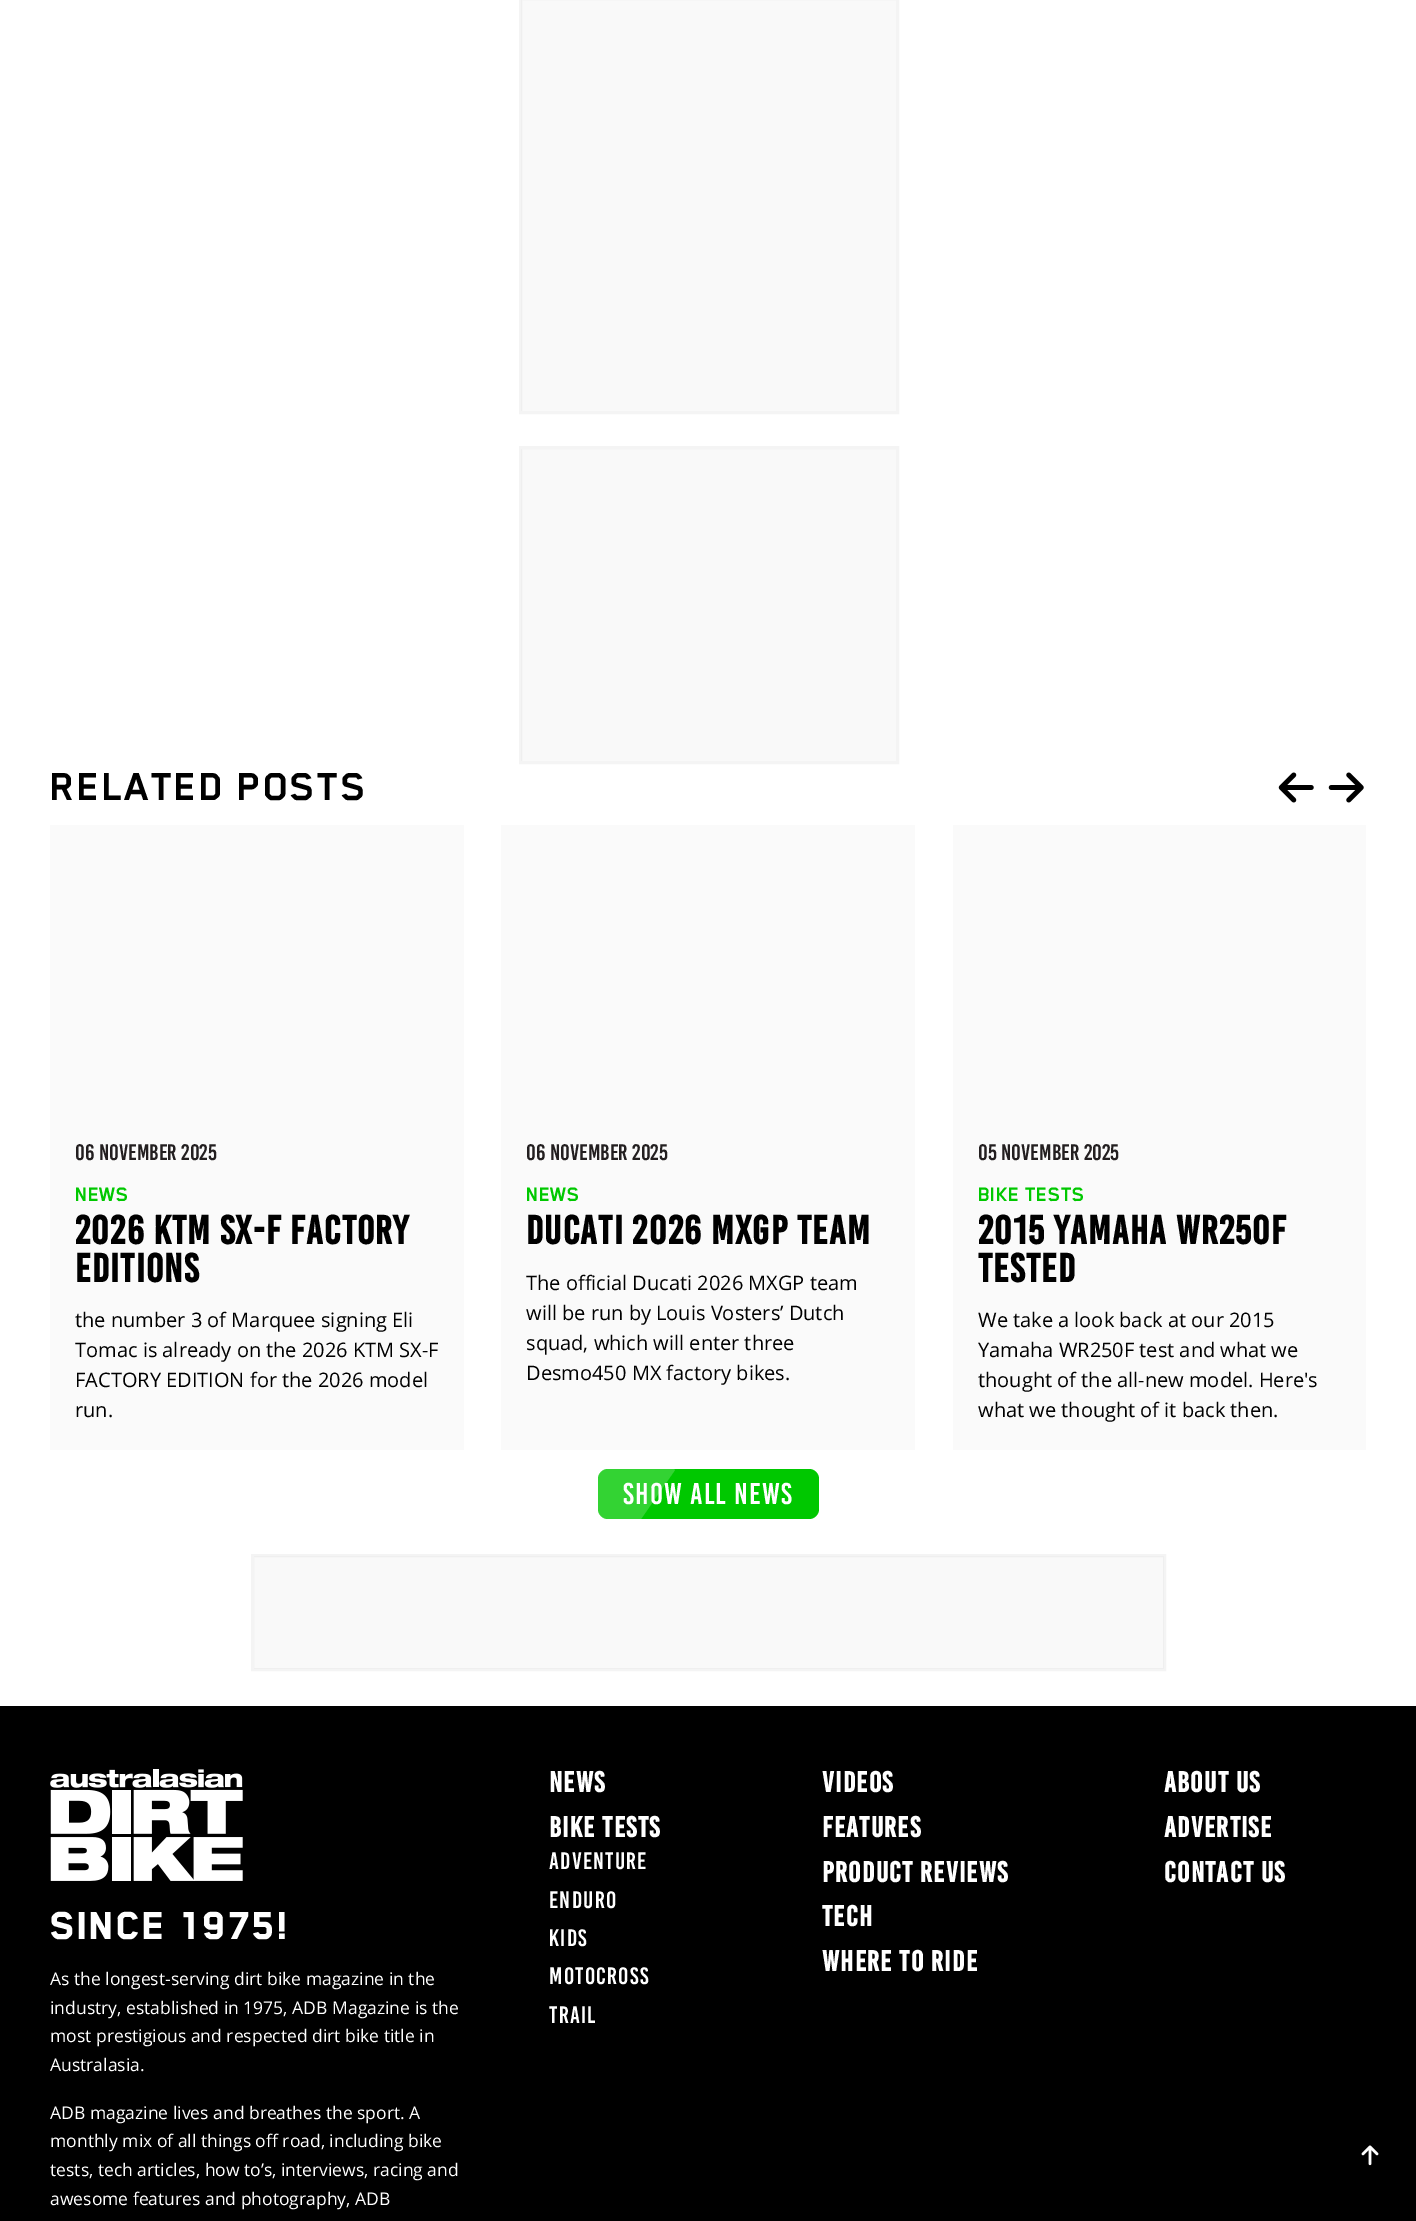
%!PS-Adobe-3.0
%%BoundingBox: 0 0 1416 2221
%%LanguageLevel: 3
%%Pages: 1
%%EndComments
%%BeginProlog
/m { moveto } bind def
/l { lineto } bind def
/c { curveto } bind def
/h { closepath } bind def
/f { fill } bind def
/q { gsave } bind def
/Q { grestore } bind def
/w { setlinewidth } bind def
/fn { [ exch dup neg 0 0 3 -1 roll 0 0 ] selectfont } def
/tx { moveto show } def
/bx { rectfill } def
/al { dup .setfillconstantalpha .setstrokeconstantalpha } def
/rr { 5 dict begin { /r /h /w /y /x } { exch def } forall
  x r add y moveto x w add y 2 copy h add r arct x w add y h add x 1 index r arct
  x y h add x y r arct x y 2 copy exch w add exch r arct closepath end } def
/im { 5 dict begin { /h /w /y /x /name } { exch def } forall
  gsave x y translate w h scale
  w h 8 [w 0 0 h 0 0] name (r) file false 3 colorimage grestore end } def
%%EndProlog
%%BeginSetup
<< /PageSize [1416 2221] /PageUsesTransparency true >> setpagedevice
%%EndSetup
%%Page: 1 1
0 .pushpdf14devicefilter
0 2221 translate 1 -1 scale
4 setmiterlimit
1 setgray
0 0 1416 2221 bx
0.976 setgray
521 0 375 411 bx
0.25 al
0.827 setgray
3 w
520.5 -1.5 377 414 rectstroke
1 al
0.976 setgray
521 449 375 312 bx
0.25 al
0.827 setgray
520.5 447.5 377 315 rectstroke
/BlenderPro-Bold 45 fn
1 al
0 setgray
50 800 m 1.25 0 (RELATED POSTS) ashow
(image0.raw) 1278 772 36 31 im
(image1.raw) 1328 772 36 31 im
0.98 setgray
50 825 414 625 bx
/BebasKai-Regular 22.5 fn
0.137 0.122 0.125 setrgbcolor
(06 NOVEMBER 2025) 75 1160 tx
/BlenderPro-Bold 22.5 fn
0 0.784 0 setrgbcolor
(NEWS) 75 1201 tx
/BebasKai-Bold 40 fn
0 setgray
75 1244 m 1.25 0 (2026 KTM SX-F FACTORY) ashow
75 1282 m 1.25 0 (EDITIONS) ashow
/OpenSans-Regular 20 fn
(the number 3 of Marquee signing Eli) 75 1327 tx
(Tomac is already on the 2026 KTM SX-F) 75 1357 tx
(FACTORY EDITION for the 2026 model) 75 1387 tx
(run.) 75 1417 tx
0.98 setgray
501 825 414 625 bx
/BebasKai-Regular 22.5 fn
0.137 0.122 0.125 setrgbcolor
(06 NOVEMBER 2025) 526 1160 tx
/BlenderPro-Bold 22.5 fn
0 0.784 0 setrgbcolor
(NEWS) 526 1201 tx
/BebasKai-Bold 40 fn
0 setgray
526 1244 m 1.25 0 (DUCATI 2026 MXGP TEAM) ashow
/OpenSans-Regular 20 fn
(The official Ducati 2026 MXGP team) 526 1290 tx
(will be run by Louis Vosters’ Dutch) 526 1320 tx
(squad, which will enter three) 526 1350 tx
(Desmo450 MX factory bikes.) 526 1380 tx
0.98 setgray
953 825 413 625 bx
/BebasKai-Regular 22.5 fn
0.137 0.122 0.125 setrgbcolor
(05 NOVEMBER 2025) 978 1160 tx
/BlenderPro-Bold 22.5 fn
0 0.784 0 setrgbcolor
(BIKE TESTS) 978 1201 tx
/BebasKai-Bold 40 fn
0 setgray
978 1244 m 1.25 0 (2015 YAMAHA WR250F) ashow
q
978 1211 363 75 rectclip
978 1282 m 1.25 0 (TESTED) ashow
Q
/OpenSans-Regular 20 fn
(We take a look back at our 2015) 978 1327 tx
(Yamaha WR250F test and what we) 978 1357 tx
(thought of the all-new model. Here's) 978 1387 tx
(what we thought of it back then.) 978 1417 tx
0 0.784 0 setrgbcolor
598 1469 221 50 10 rr f
/BebasKai-Regular 30 fn
1 setgray
623 1504 m 1.25 0 (SHOW ALL NEWS) ashow
0.2 al
608 1469 m 674 1469 l 675 1470 l 641 1519 l 608 1519 l 602 1519 598 1515 598 1509 c 598 1479 l 598 1473 602 1469 608 1469 c h f
1 al
0.976 setgray
254 1556 910 113 bx
0.25 al
0.827 setgray
252.5 1555.5 912 114 rectstroke
1 al
0 setgray
0 1706 1416 515 bx
(image2.raw) 50 1769 193 112 im
/BlenderPro-Black 45 fn
1 setgray
50 1939 m 1.25 0 (SINCE 1975!) ashow
/OpenSans-Regular 17.5 fn
(As the longest-serving dirt bike magazine in the) 50 1985 tx
(industry, established in 1975, ADB Magazine is the) 50 2014 tx
(most prestigious and respected dirt bike title in) 50 2042 tx
(Australasia.) 50 2071 tx
(ADB magazine lives and breathes the sport. A) 50 2119 tx
(monthly mix of all things off road, including bike) 50 2147 tx
(tests, tech articles, how to’s, interviews, racing and) 50 2176 tx
(awesome features and photography, ADB) 50 2205 tx
/BebasKai-Bold 28.75 fn
549 1792 m 1.25 0 (NEWS) ashow
549 1837 m 1.25 0 (BIKE TESTS) ashow
/BebasKai-Regular 23.75 fn
549 1869 m 1.25 0 (Adventure) ashow
549 1908 m 1.25 0 (Enduro) ashow
549 1946 m 1.25 0 (Kids) ashow
549 1984 m 1.25 0 (Motocross) ashow
549 2023 m 1.25 0 (Trail) ashow
/BebasKai-Bold 28.75 fn
822 1792 m 1.25 0 (VIDEOS) ashow
822 1837 m 1.25 0 (FEATURES) ashow
822 1882 m 1.25 0 (PRODUCT REVIEWS) ashow
822 1926 m 1.25 0 (TECH) ashow
822 1971 m 1.25 0 (WHERE TO RIDE) ashow
1164 1792 m 1.25 0 (ABOUT US) ashow
1164 1837 m 1.25 0 (ADVERTISE) ashow
1164 1882 m 1.25 0 (CONTACT US) ashow
(image3.raw) 1361 2145 18 21 im
.poppdf14devicefilter showpage
%%EOF
